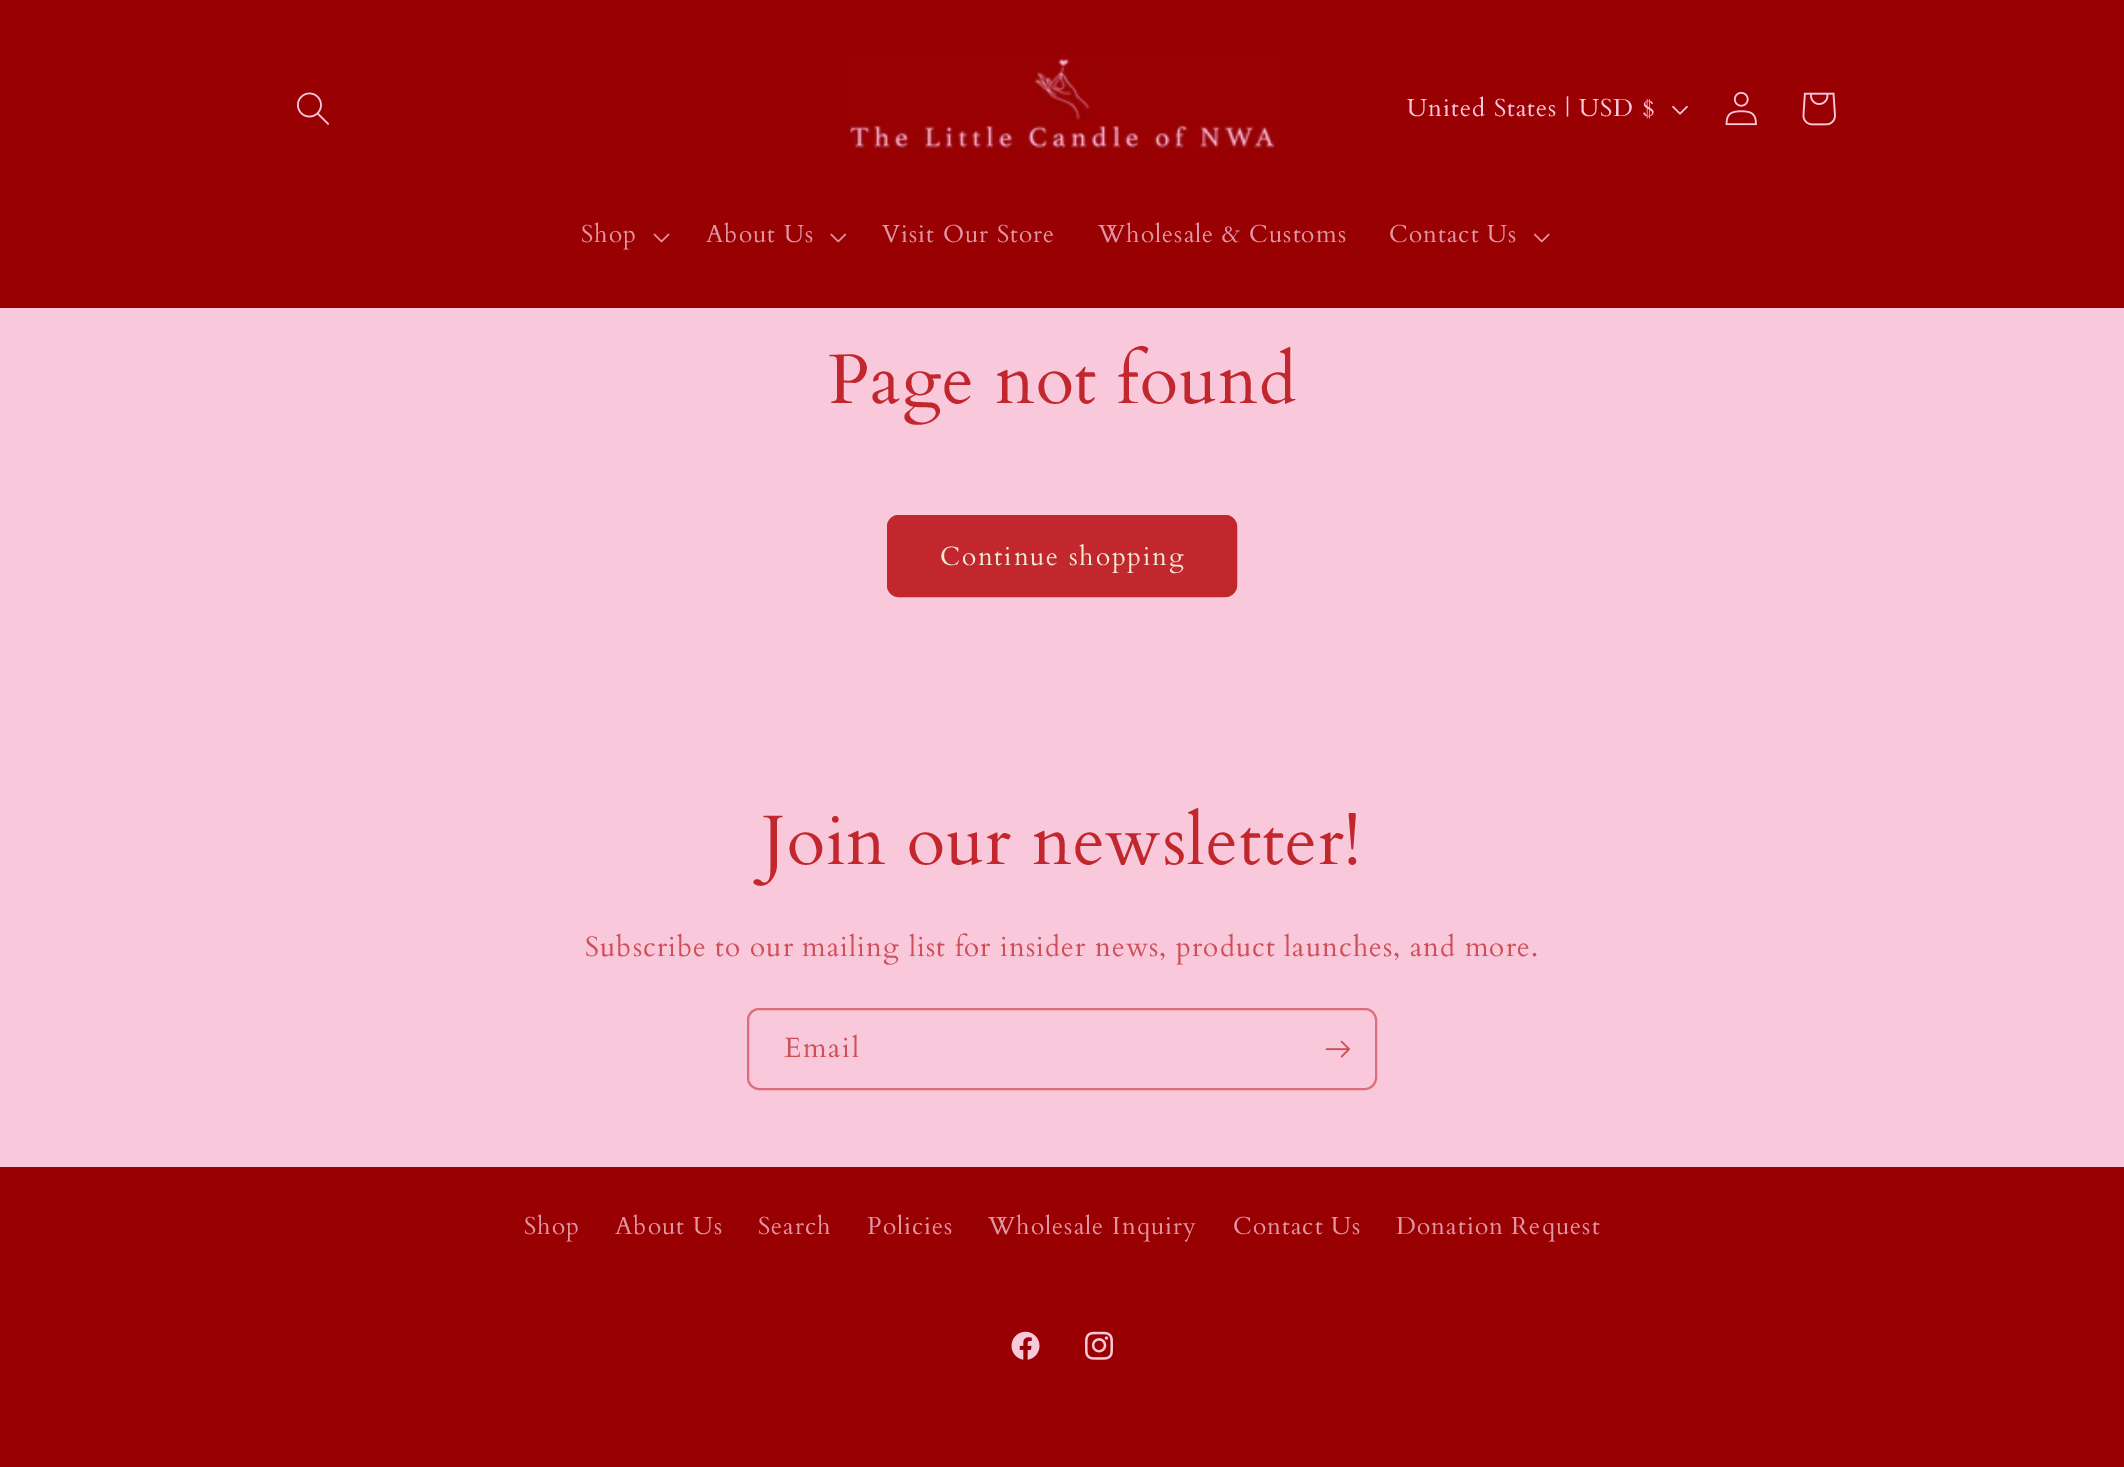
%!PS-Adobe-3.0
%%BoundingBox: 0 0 2124 1467
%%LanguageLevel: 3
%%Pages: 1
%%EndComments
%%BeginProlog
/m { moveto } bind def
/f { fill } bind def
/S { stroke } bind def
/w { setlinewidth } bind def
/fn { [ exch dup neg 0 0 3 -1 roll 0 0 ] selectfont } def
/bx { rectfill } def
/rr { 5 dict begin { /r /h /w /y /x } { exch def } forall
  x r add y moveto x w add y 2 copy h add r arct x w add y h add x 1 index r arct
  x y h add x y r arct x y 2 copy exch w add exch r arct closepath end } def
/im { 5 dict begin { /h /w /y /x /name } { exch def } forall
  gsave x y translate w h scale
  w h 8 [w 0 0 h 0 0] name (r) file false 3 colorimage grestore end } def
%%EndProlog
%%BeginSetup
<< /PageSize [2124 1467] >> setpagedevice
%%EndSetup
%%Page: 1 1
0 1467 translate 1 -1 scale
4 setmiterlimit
0.976 0.784 0.859 setrgbcolor
0 0 2124 1467 bx
0.6 0 0.008 setrgbcolor
0 0 2124 308 bx
(image0.raw) 297 92 32 33 im
(image1.raw) 847 58 429 91 im
/Cardo-Regular 24.5 fn
0.976 0.784 0.859 setrgbcolor
1407 116 m 1.05 0 (United States | USD $) ashow
(image2.raw) 1672 106 16 9 im
(image3.raw) 1725 91 32 35 im
(image4.raw) 1802 92 34 34 im
0.882 0.588 0.647 setrgbcolor
581 242 m 1.05 0 (Shop) ashow
(image5.raw) 653 233 17 10 im
706 242 m 1.05 0 (About Us) ashow
(image6.raw) 830 233 17 10 im
882 242 m 1.05 0 (Visit Our Store) ashow
1098 242 m 1.05 0 (Wholesale & Customs) ashow
1389 242 m 1.05 0 (Contact Us) ashow
(image7.raw) 1533 233 17 10 im
/Cardo-Regular 70 fn
0.757 0.153 0.176 setrgbcolor
828 403 m 1.05 0 (Page not found) ashow
887 515 350 82 12 rr f
2 w
888 516 348 80 11 rr S
/Cardo-Regular 26.25 fn
0.945 0.918 0.839 setrgbcolor
940 565 m 1.75 0 (Continue shopping) ashow
/Cardo-Regular 70 fn
0.757 0.153 0.176 setrgbcolor
762 864 m 1.05 0 (Join our newsletter!) ashow
/Cardo-Regular 28 fn
0.812 0.31 0.349 setrgbcolor
585 956 m 1.05 0 (Subscribe to our mailing list for insider news, product launches, and more.) ashow
0.855 0.435 0.482 setrgbcolor
748 1009 628 80 11 rr S
0.812 0.31 0.349 setrgbcolor
784 1057 m 1.75 0 (Email) ashow
(image8.raw) 1325 1040 25 18 im
0.6 0 0.008 setrgbcolor
0 1167 2124 300 bx
/Cardo-Regular 24.5 fn
0.882 0.588 0.647 setrgbcolor
524 1234 m 1.05 0 (Shop) ashow
615 1234 m 1.05 0 (About Us) ashow
758 1234 m 1.05 0 (Search) ashow
867 1234 m 1.05 0 (Policies) ashow
988 1234 m 1.05 0 (Wholesale Inquiry) ashow
1233 1234 m 1.05 0 (Contact Us) ashow
1396 1234 m 1.05 0 (Donation Request) ashow
(image9.raw) 1011 1331 29 29 im
(image10.raw) 1085 1331 28 29 im
showpage
%%EOF
